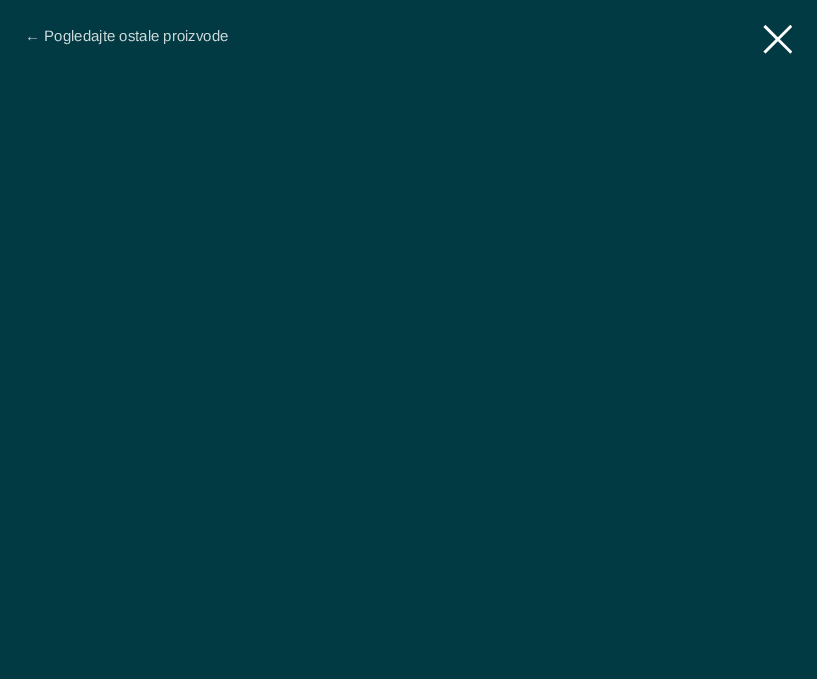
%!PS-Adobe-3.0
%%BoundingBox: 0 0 817 679
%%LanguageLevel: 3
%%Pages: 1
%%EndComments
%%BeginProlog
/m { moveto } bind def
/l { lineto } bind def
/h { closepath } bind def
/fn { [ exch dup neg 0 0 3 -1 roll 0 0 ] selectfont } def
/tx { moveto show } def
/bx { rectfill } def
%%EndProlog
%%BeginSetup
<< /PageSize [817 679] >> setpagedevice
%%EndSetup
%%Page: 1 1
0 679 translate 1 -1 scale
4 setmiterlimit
0.008 0.227 0.267 setrgbcolor
0 0 817 679 bx
/LiberationSans-Regular 15 fn
0.8 0.847 0.855 setrgbcolor
(← Pogledajte ostale proizvode) 25 41 tx
1 setgray
763.5 27 m 765.5 25 l 792 51.5 l 790.5 53.5 l h eofill
790.5 25 m 792 27 l 765.5 53.5 l 763.5 51.5 l h eofill
showpage
%%EOF
